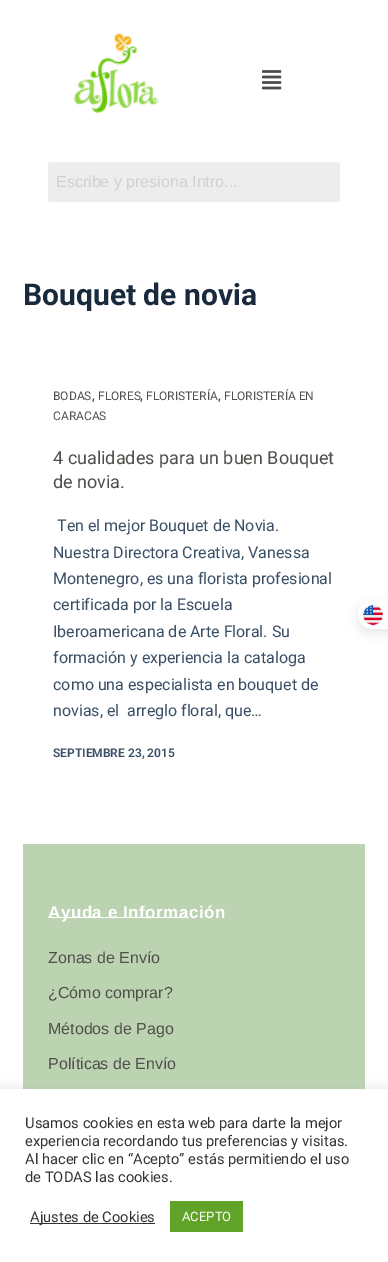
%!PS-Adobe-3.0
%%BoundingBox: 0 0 388 1262
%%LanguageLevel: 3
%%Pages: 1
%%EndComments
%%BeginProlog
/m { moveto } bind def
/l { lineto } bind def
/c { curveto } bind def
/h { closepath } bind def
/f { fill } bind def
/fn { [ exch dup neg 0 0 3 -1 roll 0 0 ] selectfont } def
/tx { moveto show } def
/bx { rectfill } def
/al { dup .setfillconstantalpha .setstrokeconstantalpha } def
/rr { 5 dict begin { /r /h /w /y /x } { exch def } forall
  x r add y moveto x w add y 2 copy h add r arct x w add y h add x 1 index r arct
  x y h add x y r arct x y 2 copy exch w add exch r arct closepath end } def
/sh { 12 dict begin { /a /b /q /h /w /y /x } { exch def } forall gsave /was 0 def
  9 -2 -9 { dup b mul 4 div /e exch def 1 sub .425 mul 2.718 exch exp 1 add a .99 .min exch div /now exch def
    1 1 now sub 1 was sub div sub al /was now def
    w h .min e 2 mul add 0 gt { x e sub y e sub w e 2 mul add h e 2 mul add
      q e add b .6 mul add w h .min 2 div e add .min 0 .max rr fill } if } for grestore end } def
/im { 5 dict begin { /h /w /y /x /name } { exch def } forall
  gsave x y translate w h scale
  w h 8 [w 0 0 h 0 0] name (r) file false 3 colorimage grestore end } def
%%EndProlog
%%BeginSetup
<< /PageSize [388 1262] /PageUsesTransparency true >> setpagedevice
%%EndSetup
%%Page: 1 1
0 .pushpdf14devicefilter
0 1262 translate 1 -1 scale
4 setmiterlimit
1 setgray
0 0 388 1262 bx
(image0.raw) 73 33 86 81 im
(image1.raw) 262 70 20 20 im
0.929 setgray
48 162 292 40 3 rr f
/LiberationSans-Regular 16 fn
0.816 setgray
(Escribe y presiona Intro...) 56 187 tx
/Roboto-Bold 30 fn
0.098 0.165 0.239 setrgbcolor
(Bouquet de novia) 23 305 tx
/Roboto-Regular 12 fn
0.314 0.31 0.294 setrgbcolor
(BODAS) 53 400 tx
/Roboto-SemiBold 12 fn
0.227 0.31 0.4 setrgbcolor
(,) 92 400 tx
/Roboto-Regular 12 fn
0.314 0.31 0.294 setrgbcolor
(FLORES) 98 400 tx
/Roboto-SemiBold 12 fn
0.227 0.31 0.4 setrgbcolor
(,) 140 400 tx
/Roboto-Regular 12 fn
0.314 0.31 0.294 setrgbcolor
(FLORISTERÍA) 146 400 tx
/Roboto-SemiBold 12 fn
0.227 0.31 0.4 setrgbcolor
(,) 218 400 tx
/Roboto-Regular 12 fn
0.314 0.31 0.294 setrgbcolor
(FLORISTERÍA EN) 224 400 tx
(CARACAS) 53 420 tx
/Roboto-Regular 18 fn
(4 cualidades para un buen Bouquet) 53 464 tx
(de novia.) 53 488 tx
/Roboto-Regular 16 fn
0.227 0.31 0.4 setrgbcolor
(Ten el mejor Bouquet de Novia.) 57 531 tx
(Nuestra Directora Creativa, Vanessa) 53 558 tx
(Montenegro, es una florista profesional) 53 584 tx
(certificada por la Escuela) 53 610 tx
(Iberoamericana de Arte Floral. Su) 53 637 tx
(formación y experiencia la cataloga) 53 663 tx
(como una especialista en bouquet de) 53 690 tx
(novias, el  arreglo floral, que…) 53 716 tx
/Roboto-SemiBold 12 fn
(SEPTIEMBRE 23, 2015) 53 757 tx
0.733 0.827 0.694 setrgbcolor
23 844 342 245 bx
/LiberationSans-Bold 17 fn
1 setgray
48 918 m 0.5 0 (Ayuda e Información) ashow
48 917 137 1 bx
/LiberationSans-Regular 16 fn
0.314 0.31 0.294 setrgbcolor
(Zonas de Envío) 48 963 tx
(¿Cómo comprar?) 48 998 tx
(Métodos de Pago) 48 1034 tx
(Políticas de Envío) 48 1069 tx
0 setgray
358 604 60 29 14.5 5 0.1 sh
1 setgray
372.5 600 m 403 600 l 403 629 l 372.5 629 l 364.5 629 358 622.5 358 614.5 c 358 606.5 364.5 600 372.5 600 c h f
(image2.raw) 363 605 20 21 im
0.675 0.671 0.671 setrgbcolor
0 1088 388 173 0 5 0.3 sh
1 setgray
0 1089 388 173 bx
/Roboto-Regular 14.7 fn
0.2 setgray
(Usamos cookies en esta web para darte la mejor) 25 1128 tx
(experiencia recordando tus preferencias y visitas.) 25 1146 tx
(Al hacer clic en “Acepto” estás permitiendo el uso) 25 1164 tx
(de TODAS las cookies.) 25 1182 tx
30 1223 125 1 bx
(Ajustes de Cookies) 30 1222 tx
0.38 0.635 0.161 setrgbcolor
170 1201 73 31 bx
/Roboto-Regular 13 fn
1 setgray
(ACEPTO) 182 1221 tx
.poppdf14devicefilter showpage
%%EOF
